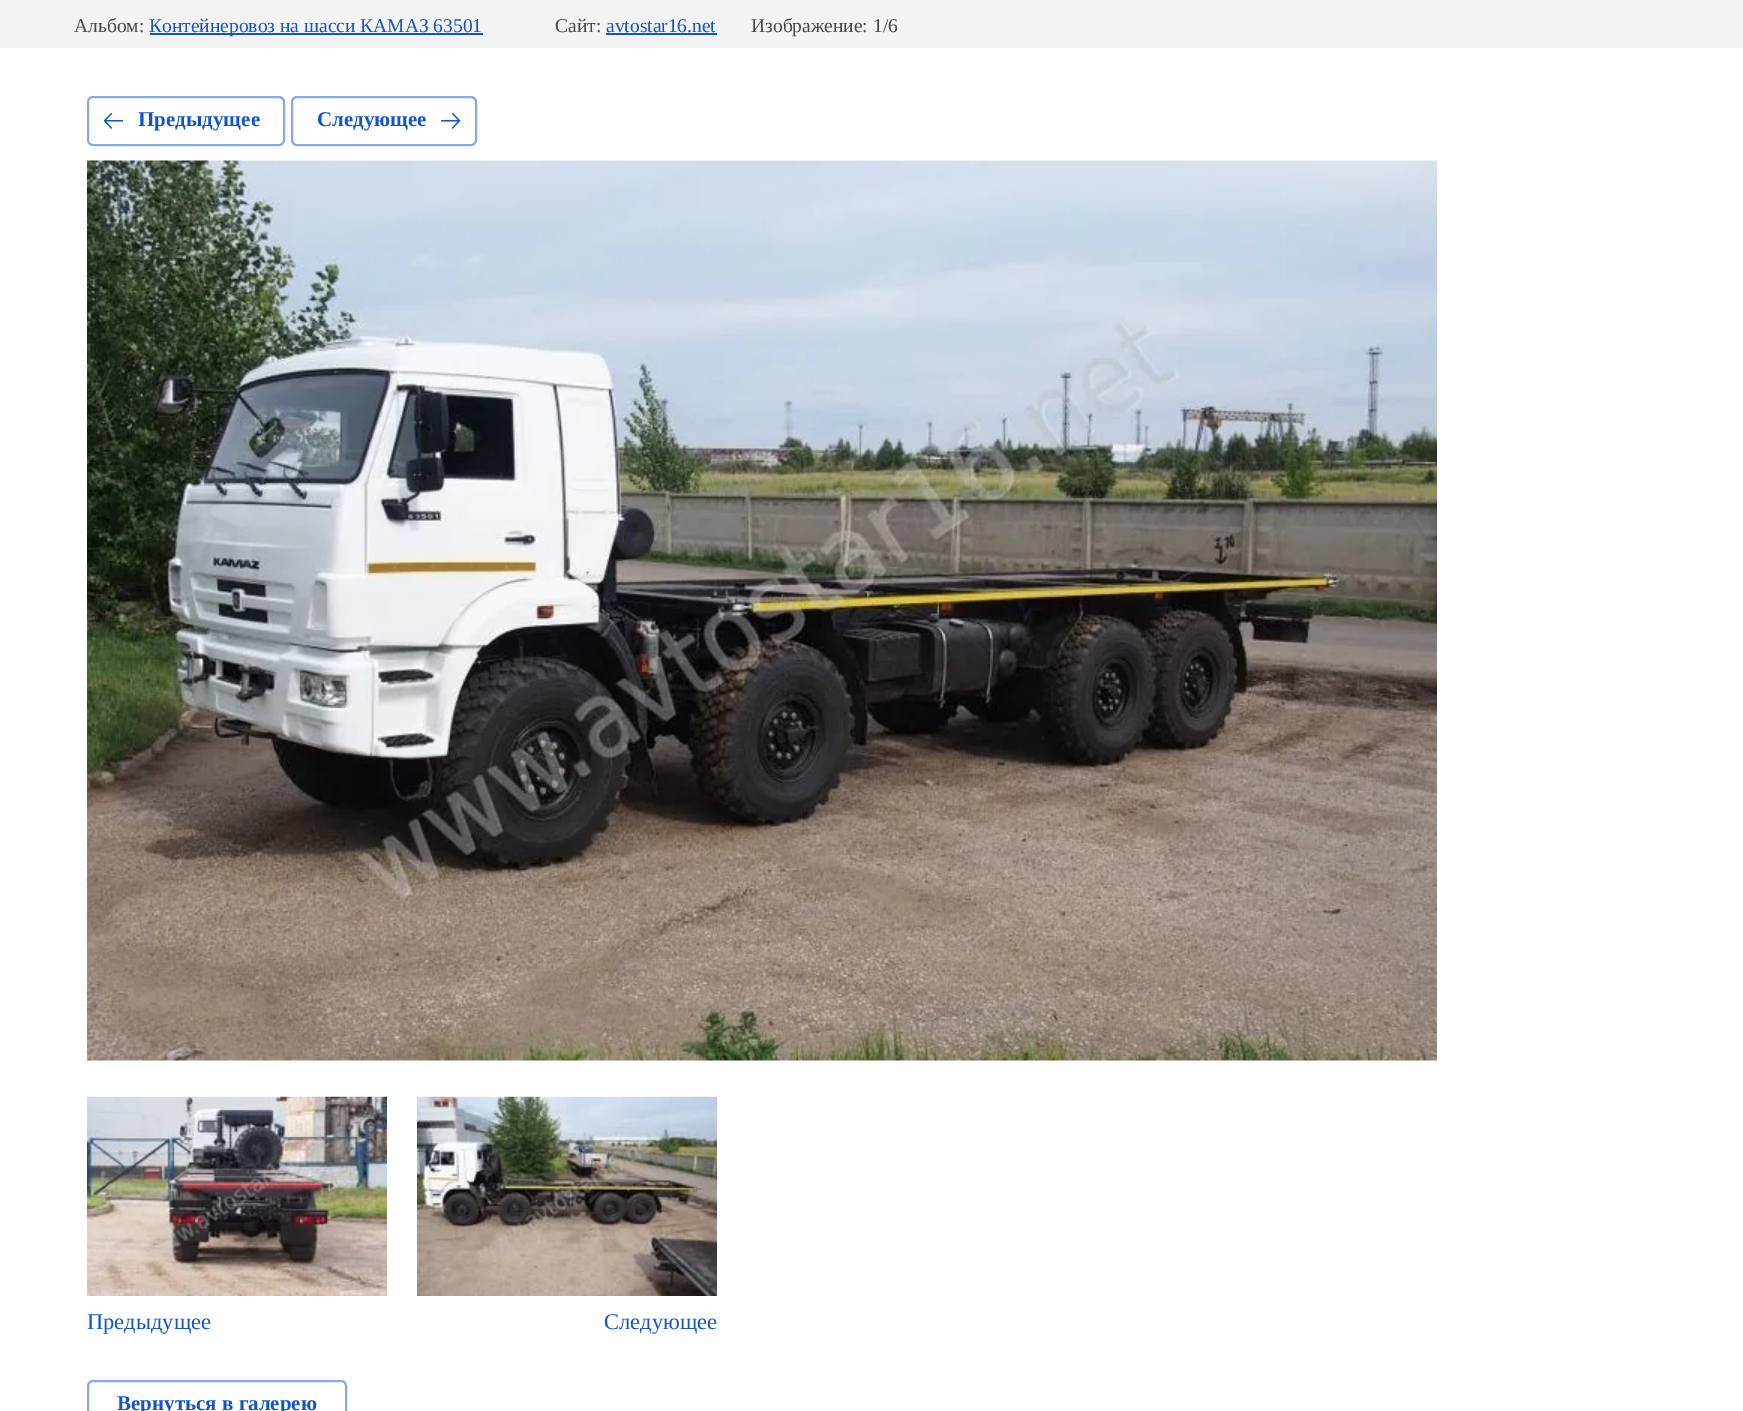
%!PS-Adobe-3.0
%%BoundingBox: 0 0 1743 1411
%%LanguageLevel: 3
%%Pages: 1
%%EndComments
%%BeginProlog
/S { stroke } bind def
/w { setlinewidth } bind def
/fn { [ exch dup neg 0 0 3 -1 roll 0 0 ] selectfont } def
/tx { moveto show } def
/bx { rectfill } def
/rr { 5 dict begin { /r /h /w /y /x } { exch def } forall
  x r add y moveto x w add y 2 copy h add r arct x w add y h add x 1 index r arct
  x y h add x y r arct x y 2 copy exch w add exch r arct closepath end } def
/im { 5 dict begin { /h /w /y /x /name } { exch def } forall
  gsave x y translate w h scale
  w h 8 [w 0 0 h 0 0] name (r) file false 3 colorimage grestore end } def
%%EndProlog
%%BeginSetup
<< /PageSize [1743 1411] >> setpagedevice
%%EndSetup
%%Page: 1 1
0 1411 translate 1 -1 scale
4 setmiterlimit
1 setgray
0 0 1743 1411 bx
0.953 setgray
0 0 1743 48 bx
/LiberationSerif-Regular 19.5 fn
0.282 setgray
(Альбом:) 74 32 tx
0.067 0.333 0.8 setrgbcolor
150 33 333 2 bx
(Контейнеровоз на шасси КАМАЗ 63501) 149 32 tx
0.282 setgray
(Сайт:) 555 32 tx
0.067 0.333 0.8 setrgbcolor
(avtostar16.net) 606 32 tx
606 33 111 2 bx
0.282 setgray
(Изображение: 1/6) 751 32 tx
0.533 0.667 0.902 setrgbcolor
2 w
88 97 196 48 5 rr S
(image0.raw) 104 113 19 16 im
/LiberationSerif-Bold 21 fn
0.067 0.333 0.8 setrgbcolor
(Предыдущее) 138 126 tx
0.533 0.667 0.902 setrgbcolor
292 97 184 48 5 rr S
0.067 0.333 0.8 setrgbcolor
(Следующее) 317 126 tx
(image1.raw) 441 113 20 16 im
(image2.raw) 87 160 1350 901 im
(image3.raw) 87 1096 300 200 im
/LiberationSerif-Regular 22.5 fn
(Предыдущее) 87 1329 tx
(image4.raw) 417 1096 300 200 im
(Следующее) 604 1329 tx
0.533 0.667 0.902 setrgbcolor
88 1381 258 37 5 rr S
/LiberationSerif-Bold 21 fn
0.067 0.333 0.8 setrgbcolor
(Вернуться в галерею) 117 1410 tx
showpage
%%EOF
